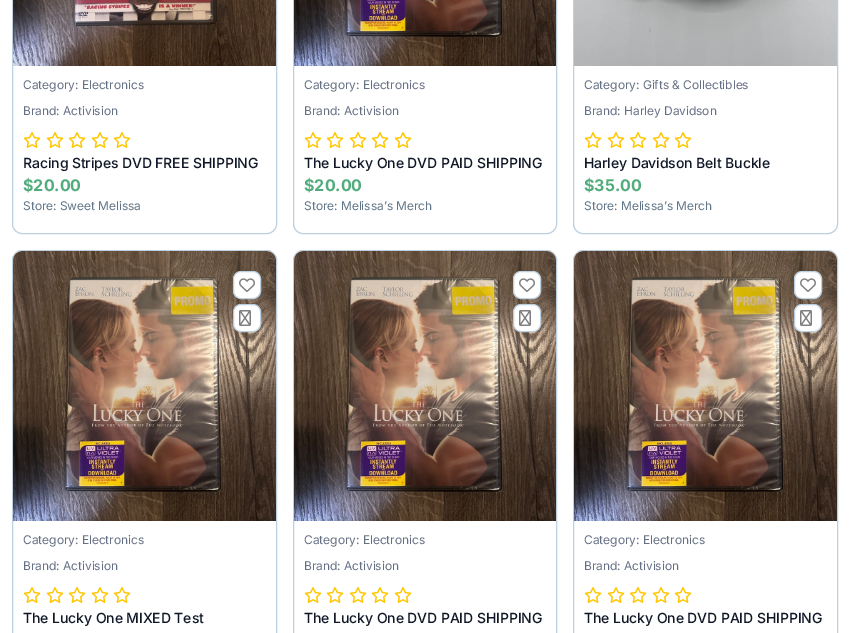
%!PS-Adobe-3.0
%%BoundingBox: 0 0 850 633
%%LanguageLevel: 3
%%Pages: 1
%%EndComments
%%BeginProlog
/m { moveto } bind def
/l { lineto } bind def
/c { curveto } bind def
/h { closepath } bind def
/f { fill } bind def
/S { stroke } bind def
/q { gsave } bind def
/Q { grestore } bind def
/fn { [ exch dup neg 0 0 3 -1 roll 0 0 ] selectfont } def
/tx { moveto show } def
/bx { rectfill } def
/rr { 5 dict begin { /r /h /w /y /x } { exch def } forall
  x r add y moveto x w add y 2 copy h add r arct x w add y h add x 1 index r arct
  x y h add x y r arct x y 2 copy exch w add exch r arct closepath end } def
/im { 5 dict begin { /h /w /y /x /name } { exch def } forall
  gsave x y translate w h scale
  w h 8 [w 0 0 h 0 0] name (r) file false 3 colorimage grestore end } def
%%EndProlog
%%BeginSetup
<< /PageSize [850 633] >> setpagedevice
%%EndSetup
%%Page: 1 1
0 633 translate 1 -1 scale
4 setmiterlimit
1 setgray
0 0 850 633 bx
0.741 0.816 0.878 setrgbcolor
12.5 -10.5 264 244 9.5 rr S
(image0.raw) 13 0 263 66 im
/Inter-Regular 12 fn
0.4 0.439 0.522 setrgbcolor
23 89 m -0.05 0 (Category: Electronics) ashow
23 115 m -0.05 0 (Brand: Activision) ashow
(image1.raw) 23 132 18 16 im
(image1.raw) 46 132 18 16 im
(image1.raw) 68 132 18 16 im
(image1.raw) 91 132 18 16 im
(image1.raw) 113 132 18 16 im
/Inter-Medium 14 fn
0.063 0.094 0.157 setrgbcolor
23 168 m -0.1 0 (Racing Stripes DVD FREE SHIPPING) ashow
/Inter-Bold 16 fn
0.322 0.675 0.486 setrgbcolor
($20.00) 23 191 tx
/Inter-Regular 12 fn
0.376 0.459 0.529 setrgbcolor
23 210 m -0.05 0 (Store: Sweet Melissa) ashow
0.741 0.816 0.878 setrgbcolor
293.5 -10.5 263 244 9.5 rr S
(image2.raw) 294 0 262 66 im
0.4 0.439 0.522 setrgbcolor
304 89 m -0.05 0 (Category: Electronics) ashow
304 115 m -0.05 0 (Brand: Activision) ashow
(image1.raw) 304 132 18 16 im
(image1.raw) 326 132 18 16 im
(image1.raw) 349 132 18 16 im
(image1.raw) 371 132 18 16 im
(image1.raw) 394 132 18 16 im
/Inter-Medium 14 fn
0.063 0.094 0.157 setrgbcolor
304 168 m -0.1 0 (The Lucky One DVD PAID SHIPPING) ashow
/Inter-Bold 16 fn
0.322 0.675 0.486 setrgbcolor
($20.00) 304 191 tx
/Inter-Regular 12 fn
0.376 0.459 0.529 setrgbcolor
304 210 m -0.05 0 (Store: Melissa’s Merch) ashow
0.741 0.816 0.878 setrgbcolor
573.5 -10.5 264 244 9.5 rr S
(image3.raw) 574 0 263 66 im
0.4 0.439 0.522 setrgbcolor
584 89 m -0.05 0 (Category: Gifts & Collectibles) ashow
584 115 m -0.05 0 (Brand: Harley Davidson) ashow
(image1.raw) 584 132 18 16 im
(image1.raw) 607 132 18 16 im
(image1.raw) 629 132 18 16 im
(image1.raw) 652 132 18 16 im
(image1.raw) 674 132 18 16 im
/Inter-Medium 14 fn
0.063 0.094 0.157 setrgbcolor
584 168 m -0.1 0 (Harley Davidson Belt Buckle) ashow
/Inter-Bold 16 fn
0.322 0.675 0.486 setrgbcolor
($35.00) 584 191 tx
/Inter-Regular 12 fn
0.376 0.459 0.529 setrgbcolor
584 210 m -0.05 0 (Store: Melissa’s Merch) ashow
0.741 0.816 0.878 setrgbcolor
12.5 250.5 264 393 9.5 rr S
0.902 0.945 0.929 setrgbcolor
22 251 m 267 251 l 272 251 276 255 276 260 c 276 521 l 13 521 l 13 260 l 13 255 17 251 22 251 c h f
(image4.raw) 13 251 263 270 im
1 setgray
233.5 271.5 27 27 7.5 rr q f Q
0.741 0.816 0.878 setrgbcolor
S
(image5.raw) 239 278 16 14 im
1 setgray
233.5 304.5 27 27 7.5 rr q f Q
0.741 0.816 0.878 setrgbcolor
S
(image6.raw) 239 310 12 16 im
0.4 0.439 0.522 setrgbcolor
23 544 m -0.05 0 (Category: Electronics) ashow
23 570 m -0.05 0 (Brand: Activision) ashow
(image1.raw) 23 587 18 16 im
(image1.raw) 46 587 18 16 im
(image1.raw) 68 587 18 16 im
(image1.raw) 91 587 18 16 im
(image1.raw) 113 587 18 16 im
/Inter-Medium 14 fn
0.063 0.094 0.157 setrgbcolor
23 623 m -0.1 0 (The Lucky One MIXED Test) ashow
0.741 0.816 0.878 setrgbcolor
293.5 250.5 263 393 9.5 rr S
0.902 0.945 0.929 setrgbcolor
303 251 m 547 251 l 552 251 556 255 556 260 c 556 521 l 294 521 l 294 260 l 294 255 298 251 303 251 c h f
(image7.raw) 294 251 262 270 im
1 setgray
513.5 271.5 27 27 7.5 rr q f Q
0.741 0.816 0.878 setrgbcolor
S
(image5.raw) 519 278 16 14 im
1 setgray
513.5 304.5 27 27 7.5 rr q f Q
0.741 0.816 0.878 setrgbcolor
S
(image6.raw) 519 310 12 16 im
/Inter-Regular 12 fn
0.4 0.439 0.522 setrgbcolor
304 544 m -0.05 0 (Category: Electronics) ashow
304 570 m -0.05 0 (Brand: Activision) ashow
(image1.raw) 304 587 18 16 im
(image1.raw) 326 587 18 16 im
(image1.raw) 349 587 18 16 im
(image1.raw) 371 587 18 16 im
(image1.raw) 394 587 18 16 im
/Inter-Medium 14 fn
0.063 0.094 0.157 setrgbcolor
304 623 m -0.1 0 (The Lucky One DVD PAID SHIPPING) ashow
0.741 0.816 0.878 setrgbcolor
573.5 250.5 264 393 9.5 rr S
0.902 0.945 0.929 setrgbcolor
583 251 m 828 251 l 833 251 837 255 837 260 c 837 521 l 574 521 l 574 260 l 574 255 578 251 583 251 c h f
(image8.raw) 574 251 263 270 im
1 setgray
794.5 271.5 27 27 7.5 rr q f Q
0.741 0.816 0.878 setrgbcolor
S
(image5.raw) 800 278 16 14 im
1 setgray
794.5 304.5 27 27 7.5 rr q f Q
0.741 0.816 0.878 setrgbcolor
S
(image6.raw) 800 310 12 16 im
/Inter-Regular 12 fn
0.4 0.439 0.522 setrgbcolor
584 544 m -0.05 0 (Category: Electronics) ashow
584 570 m -0.05 0 (Brand: Activision) ashow
(image1.raw) 584 587 18 16 im
(image1.raw) 607 587 18 16 im
(image1.raw) 629 587 18 16 im
(image1.raw) 652 587 18 16 im
(image1.raw) 674 587 18 16 im
/Inter-Medium 14 fn
0.063 0.094 0.157 setrgbcolor
584 623 m -0.1 0 (The Lucky One DVD PAID SHIPPING) ashow
showpage
%%EOF
